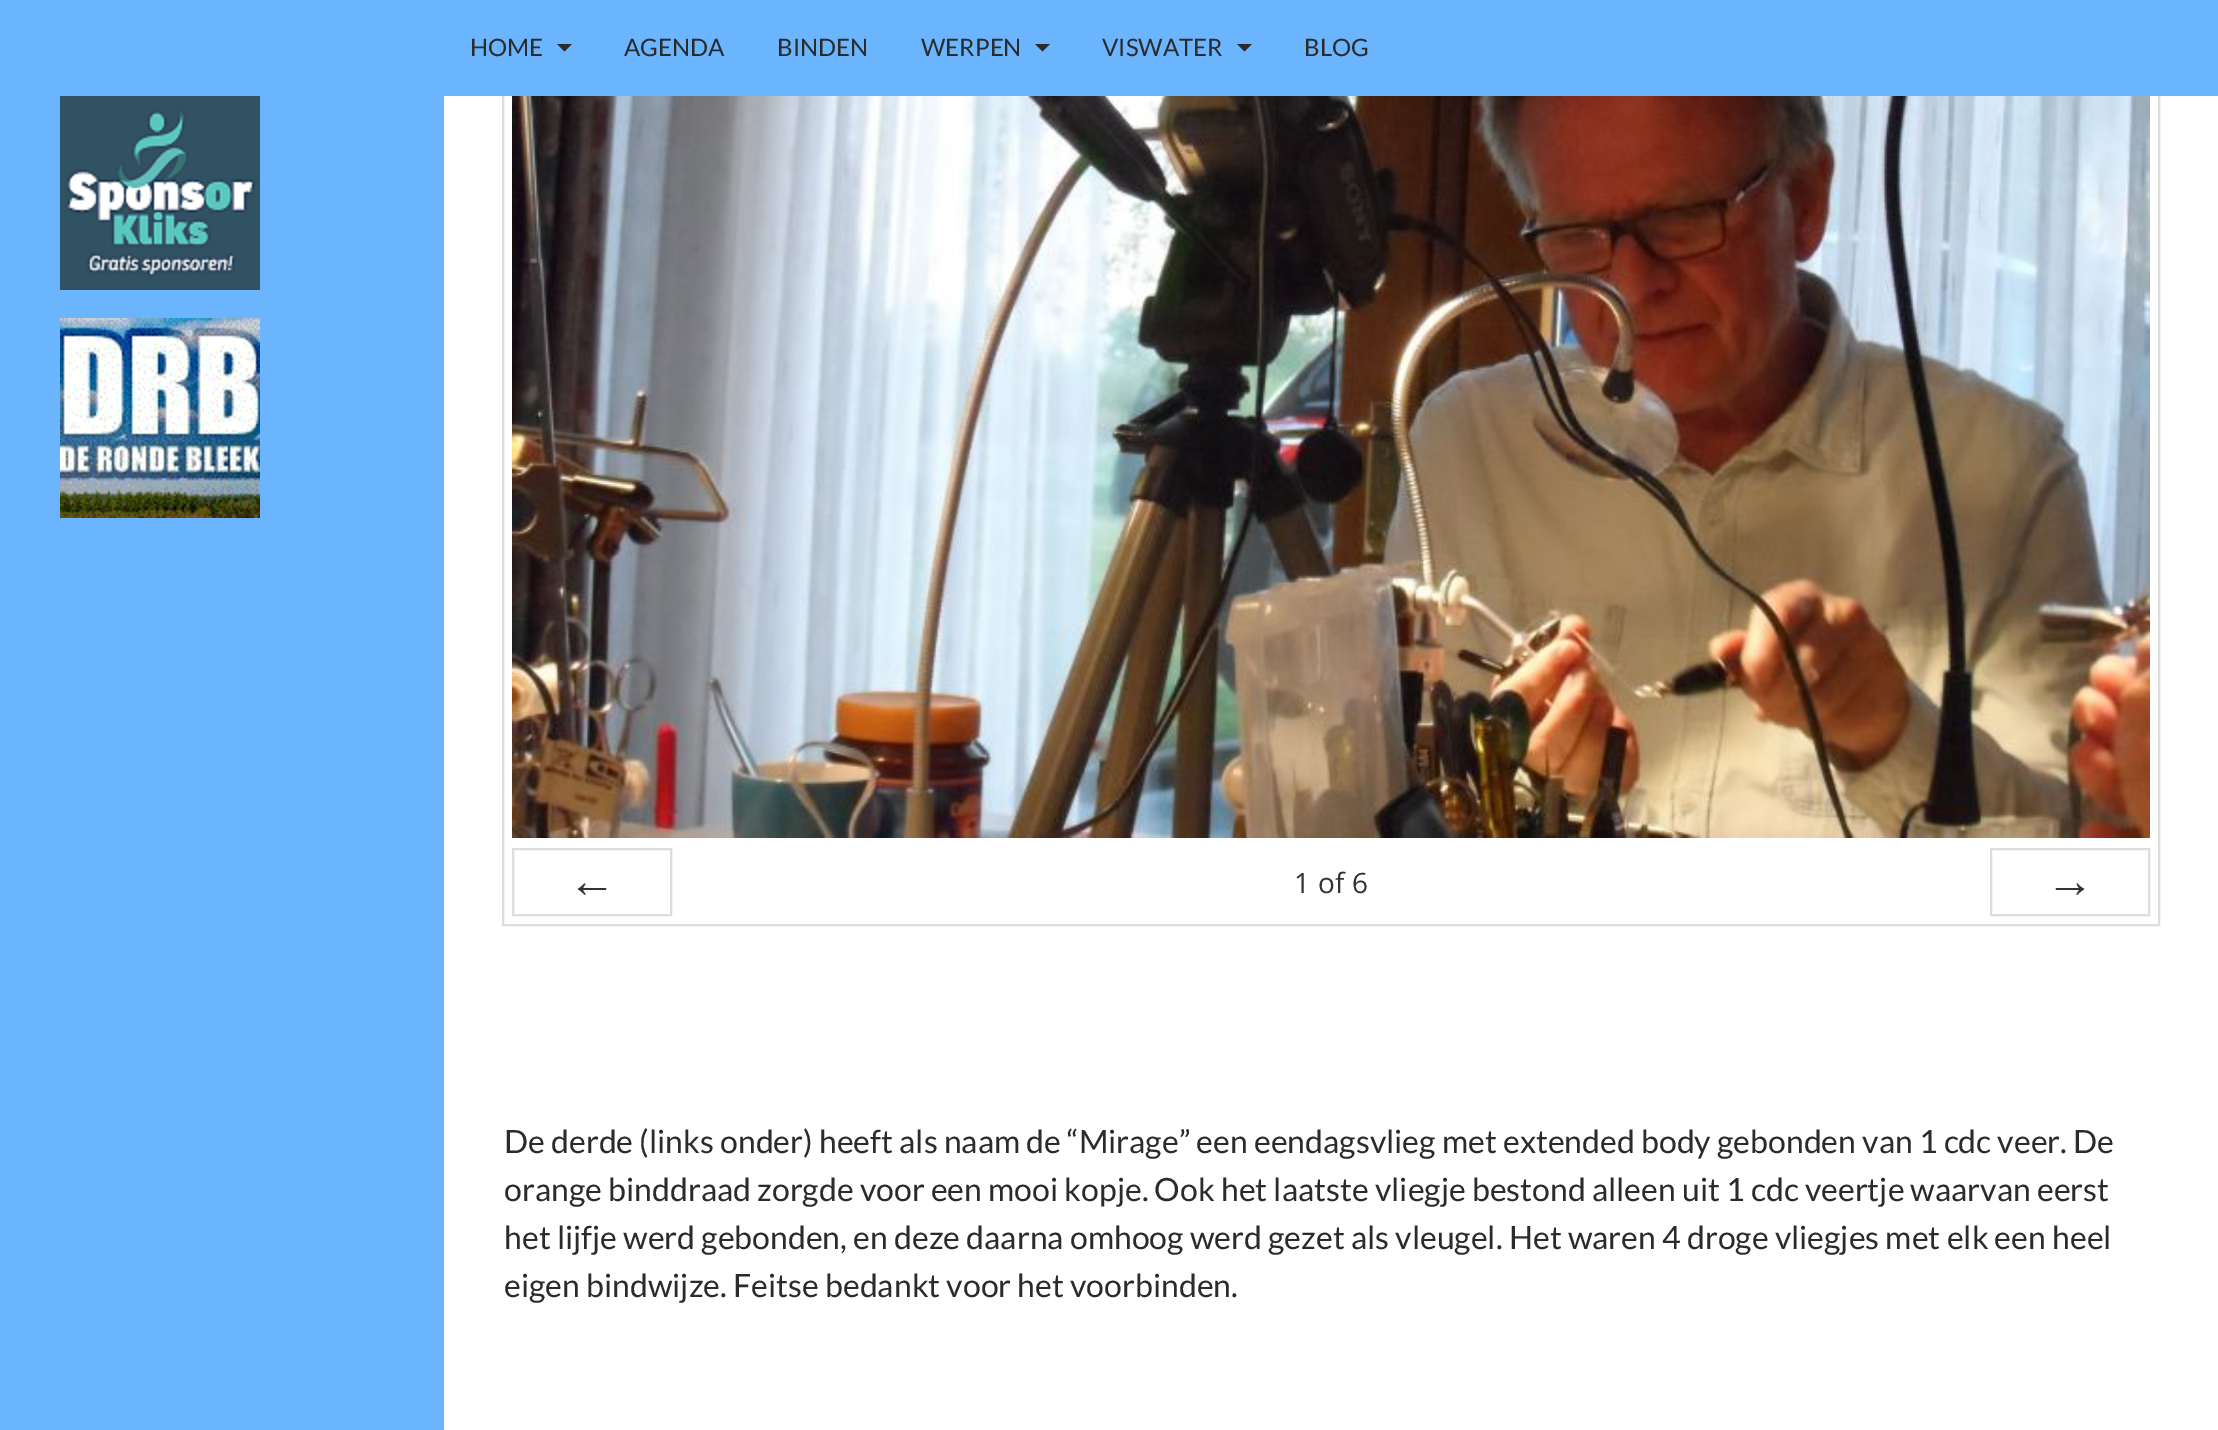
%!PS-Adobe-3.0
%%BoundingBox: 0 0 2218 1430
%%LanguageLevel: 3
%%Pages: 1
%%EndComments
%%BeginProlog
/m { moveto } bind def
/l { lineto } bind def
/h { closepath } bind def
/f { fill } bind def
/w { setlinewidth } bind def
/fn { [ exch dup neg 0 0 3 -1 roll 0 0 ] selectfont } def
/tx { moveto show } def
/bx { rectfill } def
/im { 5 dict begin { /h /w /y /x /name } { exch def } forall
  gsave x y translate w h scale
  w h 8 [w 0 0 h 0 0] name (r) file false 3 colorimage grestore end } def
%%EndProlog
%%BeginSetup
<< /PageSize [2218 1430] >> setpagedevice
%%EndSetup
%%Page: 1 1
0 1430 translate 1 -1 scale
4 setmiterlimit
1 setgray
0 0 2218 1430 bx
0.867 setgray
2 w
503 39 1656 886 rectstroke
0.42 0.71 1 setrgbcolor
0 0 2218 96 bx
/Lato-Regular 24 fn
0.169 setgray
(HOME) 470 56 tx
557 44 m 564.5 51.5 l 572 44 l h f
(AGENDA) 624 56 tx
(BINDEN) 777 56 tx
(WERPEN) 921 56 tx
1035 44 m 1042.5 51.5 l 1050 44 l h f
(VISWATER) 1102 56 tx
1237 44 m 1244.5 51.5 l 1252 44 l h f
(BLOG) 1304 56 tx
0.42 0.71 1 setrgbcolor
0 96 444 1334 bx
(image0.raw) 60 96 200 194 im
(image1.raw) 60 318 200 200 im
(image2.raw) 512 96 1638 742 im
0.867 setgray
513 849 158 66 rectstroke
/LiberationSans-Regular 48 fn
0.2 setgray
(←) 568 897 tx
/OpenSans-Regular 28 fn
(1) 1294 893 tx
(of) 1318 893 tx
(6) 1352 893 tx
0.867 setgray
1991 849 158 66 rectstroke
/LiberationSans-Regular 48 fn
0.2 setgray
(→) 2046 897 tx
/Lato-Regular 32 fn
0.169 setgray
(De derde \(links onder\) heeft als naam de “Mirage” een eendagsvlieg met extended body gebonden van 1 cdc veer. De) 504 1153 tx
(orange binddraad zorgde voor een mooi kopje. Ook het laatste vliegje bestond alleen uit 1 cdc veertje waarvan eerst) 504 1201 tx
(het lijfje werd gebonden, en deze daarna omhoog werd gezet als vleugel. Het waren 4 droge vliegjes met elk een heel) 504 1249 tx
(eigen bindwijze. Feitse bedankt voor het voorbinden.) 504 1297 tx
showpage
%%EOF
